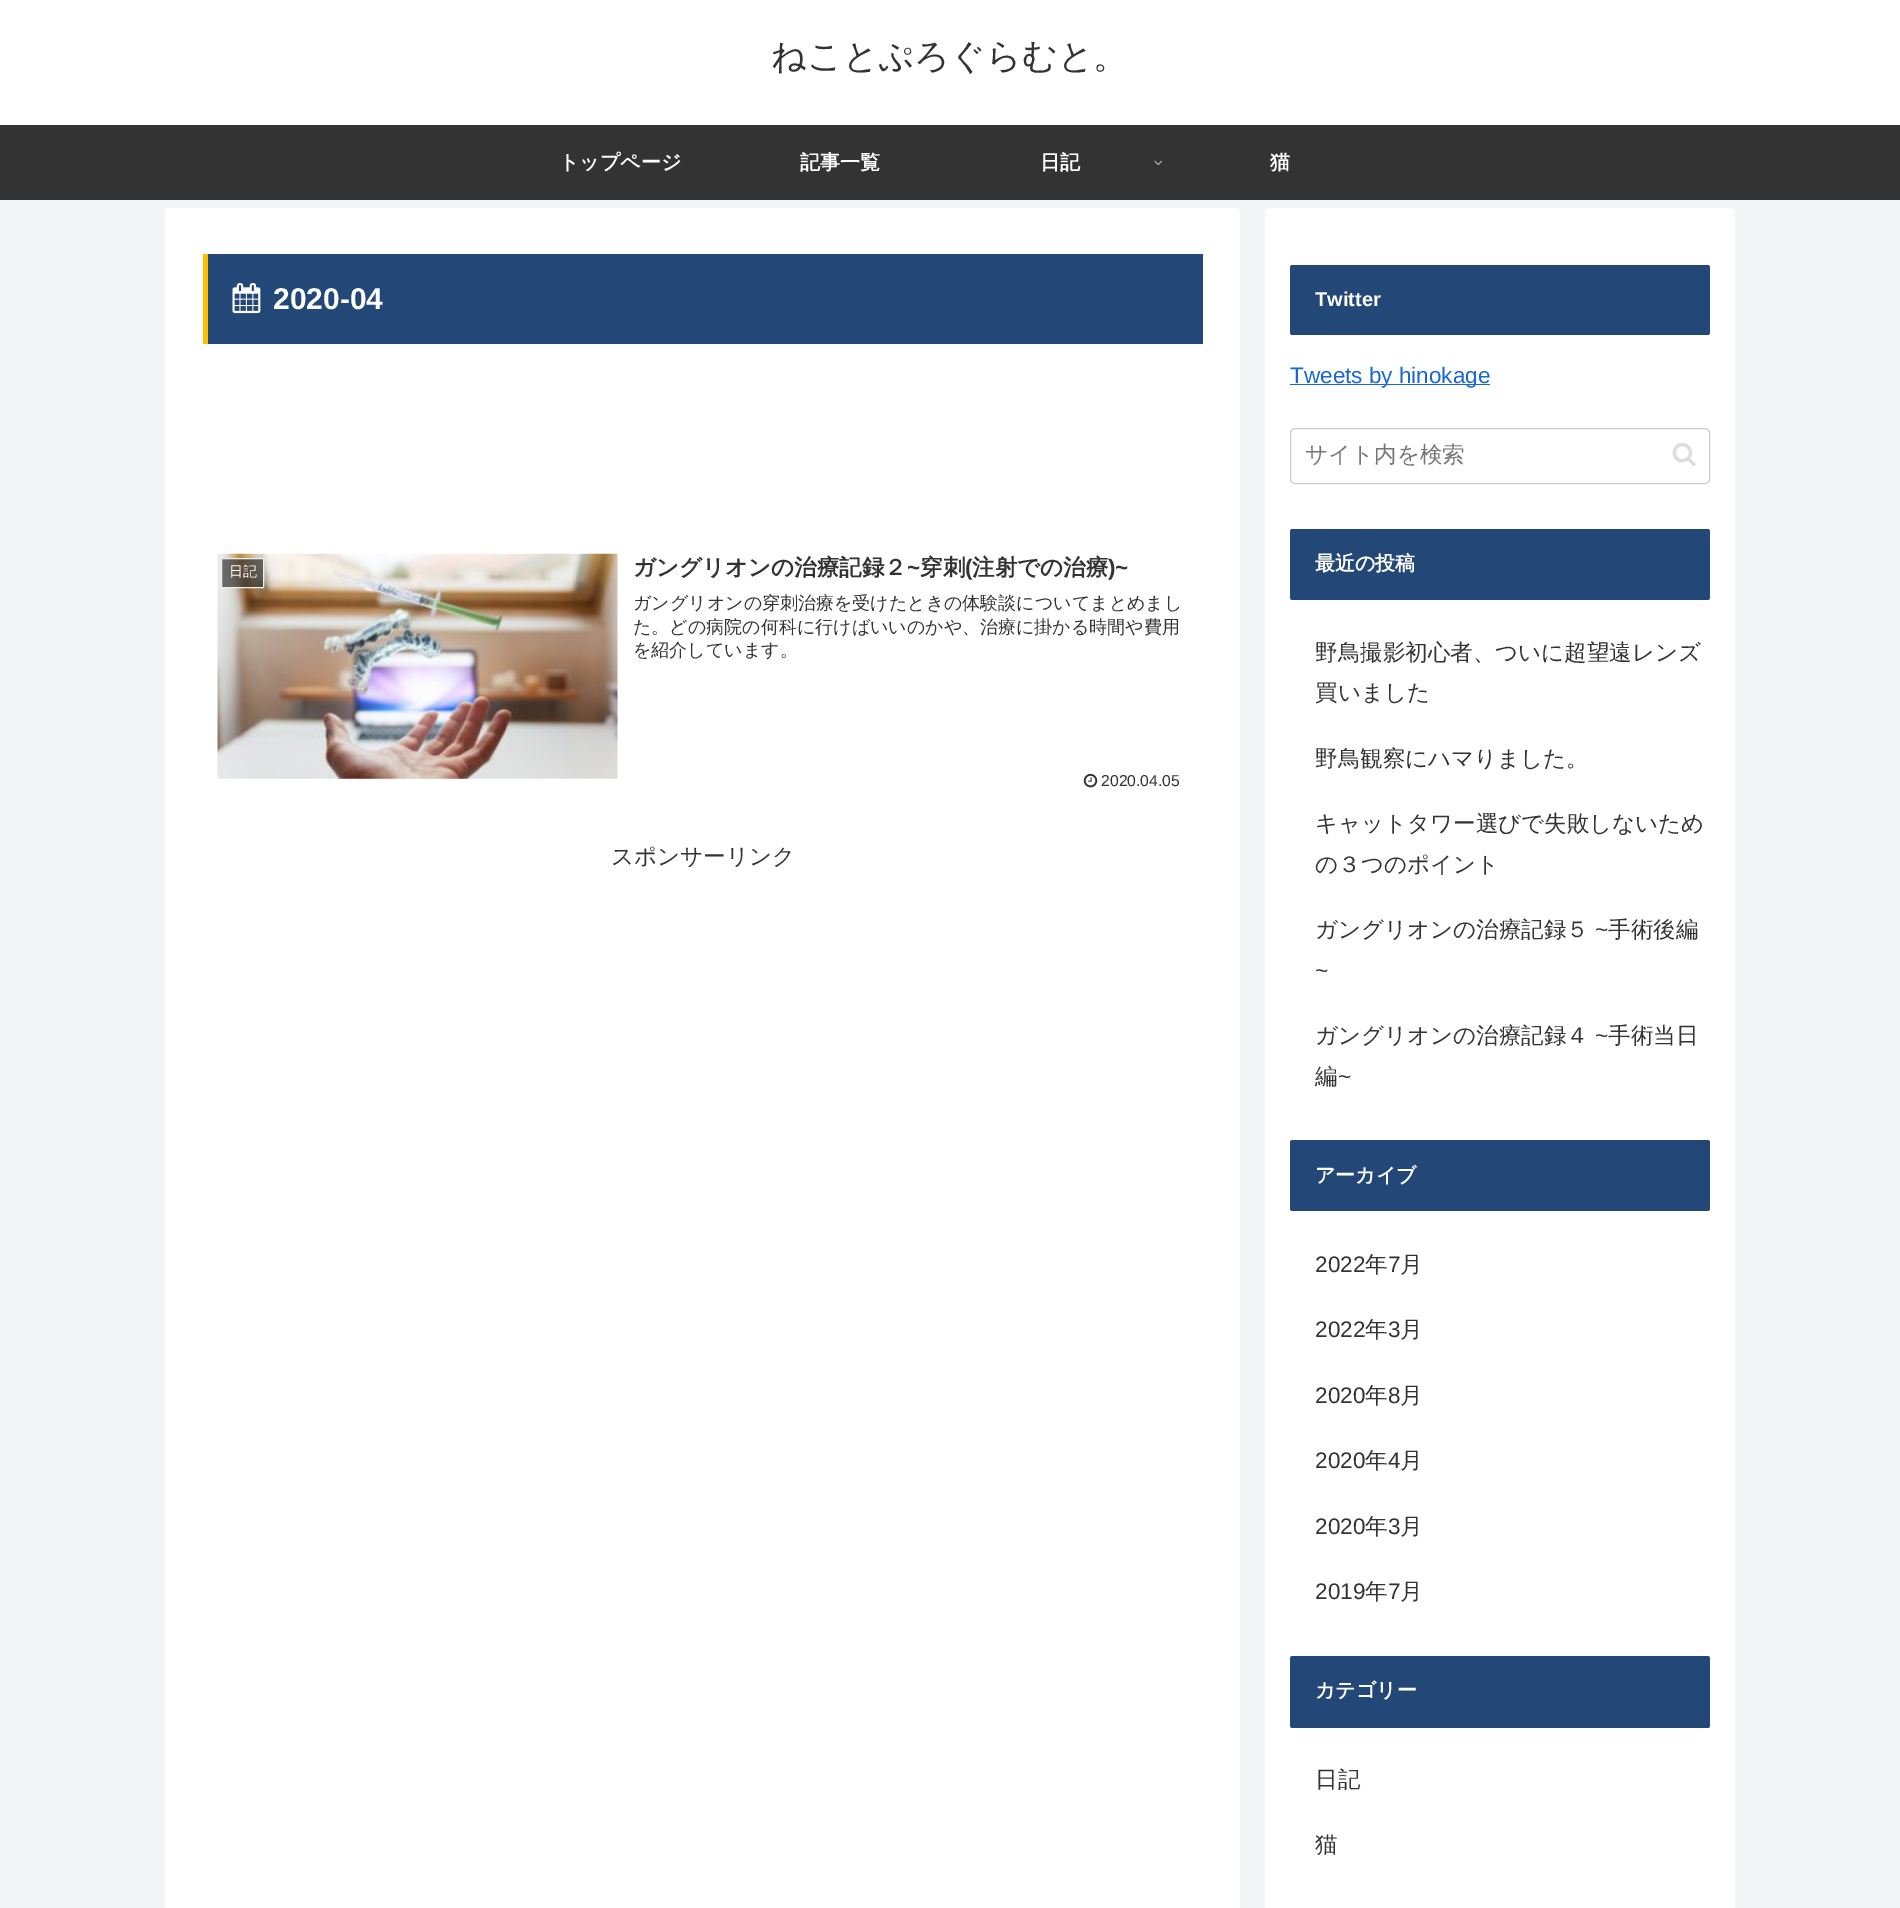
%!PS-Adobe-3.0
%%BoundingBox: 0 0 1900 1908
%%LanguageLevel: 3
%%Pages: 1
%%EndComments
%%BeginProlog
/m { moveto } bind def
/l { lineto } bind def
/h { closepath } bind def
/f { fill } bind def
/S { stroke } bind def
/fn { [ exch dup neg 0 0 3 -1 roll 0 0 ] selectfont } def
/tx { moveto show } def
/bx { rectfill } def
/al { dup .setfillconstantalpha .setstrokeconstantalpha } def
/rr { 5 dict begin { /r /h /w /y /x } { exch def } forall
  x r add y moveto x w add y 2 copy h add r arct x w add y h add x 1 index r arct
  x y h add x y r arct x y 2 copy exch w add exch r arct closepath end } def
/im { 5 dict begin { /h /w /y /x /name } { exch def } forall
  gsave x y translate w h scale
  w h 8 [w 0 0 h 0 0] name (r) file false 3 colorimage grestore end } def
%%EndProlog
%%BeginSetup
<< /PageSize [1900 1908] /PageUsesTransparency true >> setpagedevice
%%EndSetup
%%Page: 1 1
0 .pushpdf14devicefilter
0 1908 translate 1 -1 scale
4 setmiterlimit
0.957 0.961 0.969 setrgbcolor
0 0 1900 1908 bx
1 setgray
0 0 1900 125 bx
/WenQuanYiZenHei-Medium 35 fn
0.2 setgray
(ねことぷろぐらむと。) 771 68 tx
0 125 1900 75 bx
/WenQuanYiZenHei-Bold 20 fn
1 setgray
(トップページ) 559 169 tx
(記事一覧) 800 169 tx
(日記) 1040 169 tx
(image0.raw) 1154 160 8 6 im
(猫) 1270 169 tx
165 208 1075 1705 5 rr f
0.137 0.278 0.467 setrgbcolor
208 254 995 90 bx
0.996 0.749 0 setrgbcolor
203 254 5 90 bx
(image1.raw) 232 283 29 31 im
/LiberationSans-Bold 30 fn
1 setgray
(2020-04) 273 309 tx
(image2.raw) 217 553 401 226 im
0.7 al
0.2 setgray
221.5 558.5 m 263.5 558.5 l 263.5 587.5 l 221.5 587.5 l h f
1 al
0.933 setgray
221.5 558.5 m 263.5 558.5 l 263.5 587.5 l 221.5 587.5 l h S
/WenQuanYiZenHei-Medium 14 fn
1 setgray
(日記) 229 576 tx
/WenQuanYiZenHei-Bold 22.5 fn
0.2 setgray
(ガングリオンの治療記録２) 633 575 tx
/LiberationSans-Bold 22.5 fn
(~) 907 575 tx
/WenQuanYiZenHei-Bold 22.5 fn
(穿刺) 920 575 tx
/LiberationSans-Bold 22.5 fn
(\() 965 575 tx
/WenQuanYiZenHei-Bold 22.5 fn
(注射での治療) 972 575 tx
/LiberationSans-Bold 22.5 fn
(\)~) 1108 575 tx
/WenQuanYiZenHei-Medium 18 fn
(ガングリオンの穿刺治療を受けたときの体験談についてまとめまし) 633 609 tx
(た。どの病院の何科に行けばいいのかや、治療に掛かる時間や費用) 633 633 tx
(を紹介しています。) 633 656 tx
(image3.raw) 1083 773 15 15 im
/LiberationSans-Regular 15.75 fn
(2020.04.05) 1101 786 tx
/WenQuanYiZenHei-Medium 22.5 fn
(スポンサーリンク) 611 864 tx
1 setgray
1265 208 470 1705 5 rr f
0.137 0.278 0.467 setrgbcolor
1290 265 420 70 2.5 rr f
/LiberationSans-Bold 20 fn
1 setgray
(Twitter) 1315 306 tx
0.098 0.404 0.824 setrgbcolor
1290 384 200 1 bx
/LiberationSans-Regular 22.5 fn
(Tweets by hinokage) 1290 383 tx
0.8 setgray
1290.5 428.5 419 55 4.5 rr S
/WenQuanYiZenHei-Medium 22.5 fn
0.459 setgray
(サイト内を検索) 1305 462 tx
(image4.raw) 1672 443 24 23 im
0.137 0.278 0.467 setrgbcolor
1290 529 420 71 2.5 rr f
/WenQuanYiZenHei-Bold 20 fn
1 setgray
(最近の投稿) 1315 570 tx
/WenQuanYiZenHei-Medium 22.5 fn
0.2 setgray
(野鳥撮影初心者、ついに超望遠レンズ) 1315 660 tx
(買いました) 1315 700 tx
(野鳥観察にハマりました。) 1315 766 tx
(キャットタワー選びで失敗しないため) 1315 831 tx
(の３つのポイント) 1315 872 tx
(ガングリオンの治療記録５) 1315 937 tx
/LiberationSans-Regular 22.5 fn
(~) 1595 937 tx
/WenQuanYiZenHei-Medium 22.5 fn
(手術後編) 1608 937 tx
/LiberationSans-Regular 22.5 fn
(~) 1315 978 tx
/WenQuanYiZenHei-Medium 22.5 fn
(ガングリオンの治療記録４) 1315 1043 tx
/LiberationSans-Regular 22.5 fn
(~) 1595 1043 tx
/WenQuanYiZenHei-Medium 22.5 fn
(手術当日) 1608 1043 tx
(編) 1315 1084 tx
/LiberationSans-Regular 22.5 fn
(~) 1338 1084 tx
0.137 0.278 0.467 setrgbcolor
1290 1140 420 71 2.5 rr f
/WenQuanYiZenHei-Bold 20 fn
1 setgray
(アーカイブ) 1315 1182 tx
/LiberationSans-Regular 22.5 fn
0.2 setgray
(2022) 1315 1272 tx
/WenQuanYiZenHei-Medium 22.5 fn
(年) 1365 1272 tx
/LiberationSans-Regular 22.5 fn
(7) 1388 1272 tx
/WenQuanYiZenHei-Medium 22.5 fn
(月) 1400 1272 tx
/LiberationSans-Regular 22.5 fn
(2022) 1315 1337 tx
/WenQuanYiZenHei-Medium 22.5 fn
(年) 1365 1337 tx
/LiberationSans-Regular 22.5 fn
(3) 1388 1337 tx
/WenQuanYiZenHei-Medium 22.5 fn
(月) 1400 1337 tx
/LiberationSans-Regular 22.5 fn
(2020) 1315 1403 tx
/WenQuanYiZenHei-Medium 22.5 fn
(年) 1365 1403 tx
/LiberationSans-Regular 22.5 fn
(8) 1388 1403 tx
/WenQuanYiZenHei-Medium 22.5 fn
(月) 1400 1403 tx
/LiberationSans-Regular 22.5 fn
(2020) 1315 1468 tx
/WenQuanYiZenHei-Medium 22.5 fn
(年) 1365 1468 tx
/LiberationSans-Regular 22.5 fn
(4) 1388 1468 tx
/WenQuanYiZenHei-Medium 22.5 fn
(月) 1400 1468 tx
/LiberationSans-Regular 22.5 fn
(2020) 1315 1534 tx
/WenQuanYiZenHei-Medium 22.5 fn
(年) 1365 1534 tx
/LiberationSans-Regular 22.5 fn
(3) 1388 1534 tx
/WenQuanYiZenHei-Medium 22.5 fn
(月) 1400 1534 tx
/LiberationSans-Regular 22.5 fn
(2019) 1315 1599 tx
/WenQuanYiZenHei-Medium 22.5 fn
(年) 1365 1599 tx
/LiberationSans-Regular 22.5 fn
(7) 1388 1599 tx
/WenQuanYiZenHei-Medium 22.5 fn
(月) 1400 1599 tx
0.137 0.278 0.467 setrgbcolor
1290 1656 420 72 2.5 rr f
/WenQuanYiZenHei-Bold 20 fn
1 setgray
(カテゴリー) 1315 1697 tx
/WenQuanYiZenHei-Medium 22.5 fn
0.2 setgray
(日記) 1315 1787 tx
(猫) 1315 1852 tx
.poppdf14devicefilter showpage
%%EOF
